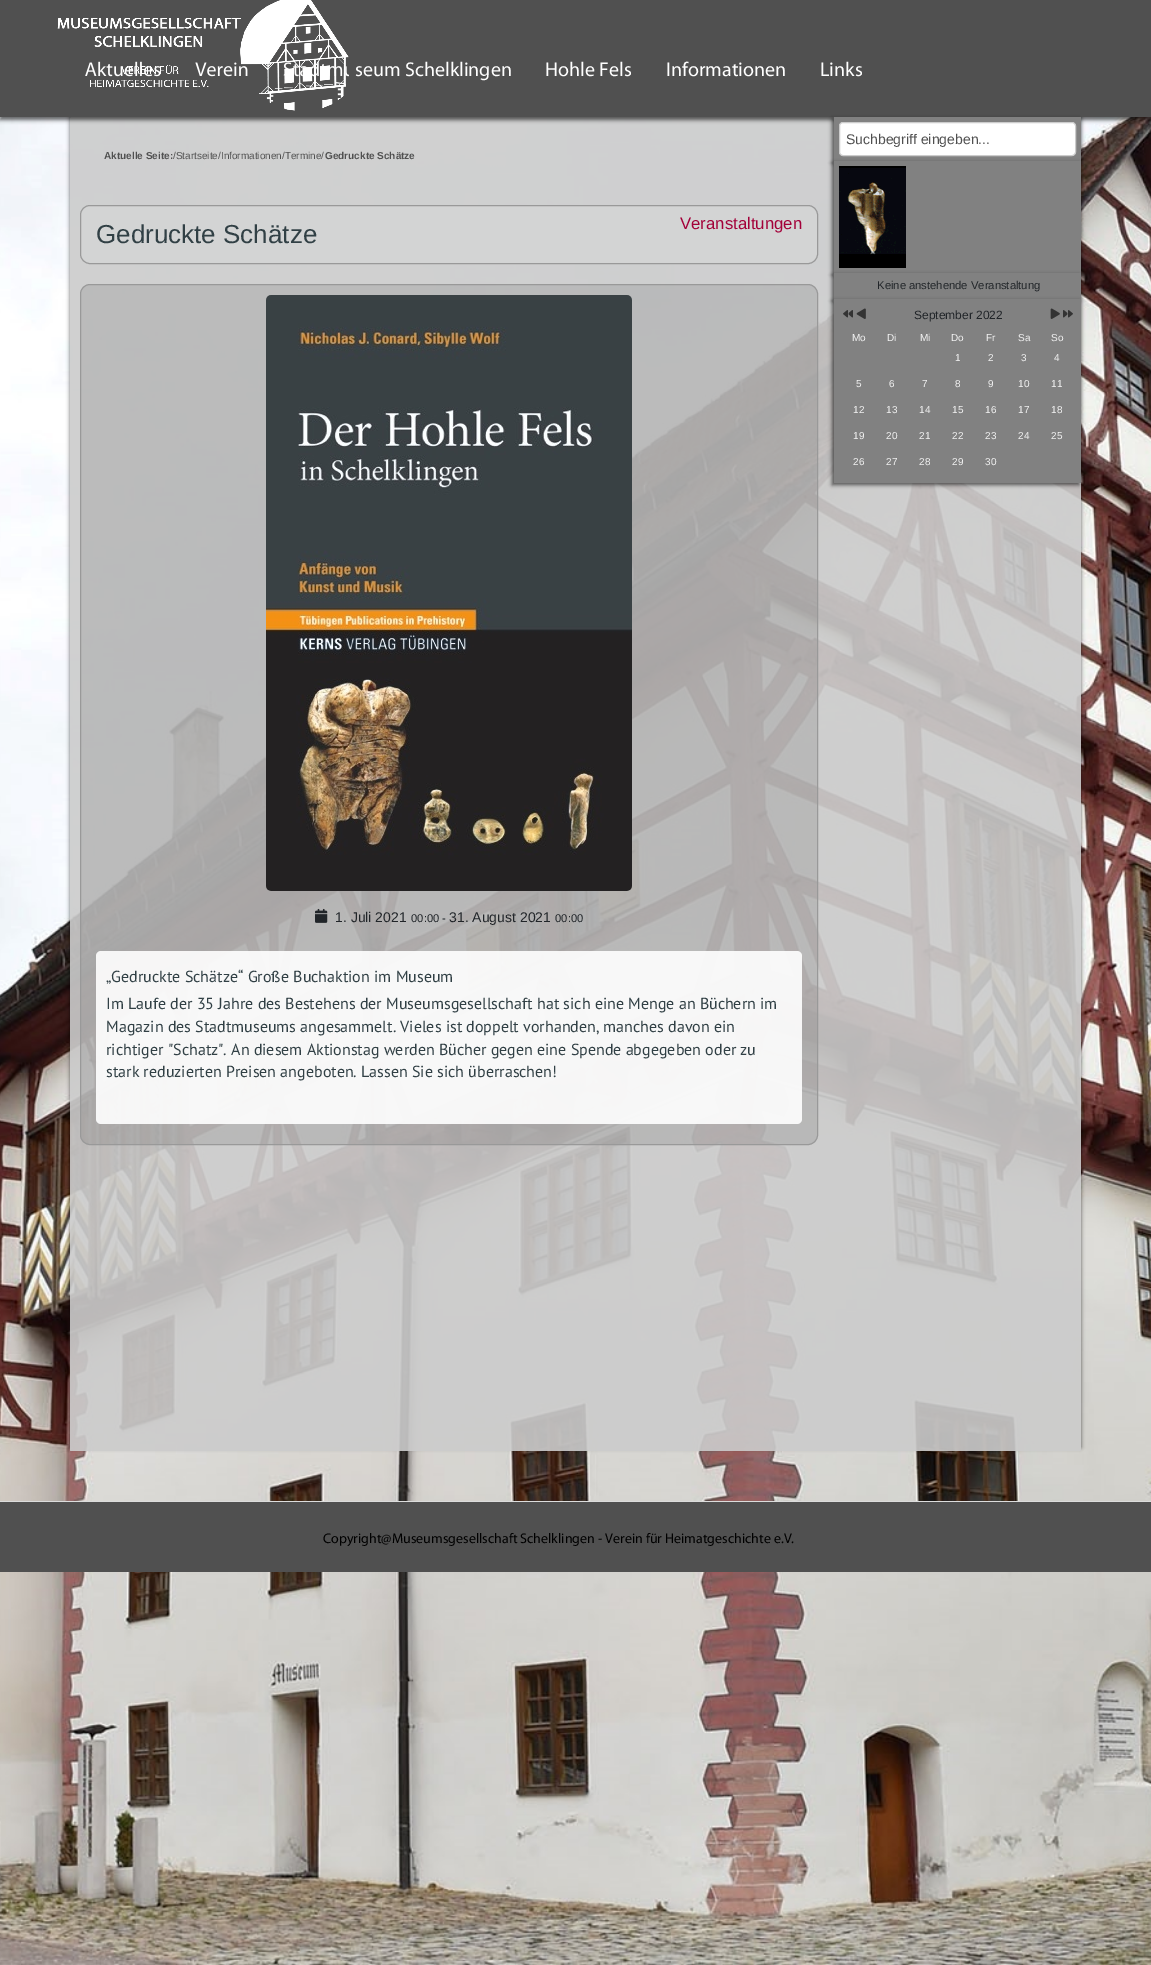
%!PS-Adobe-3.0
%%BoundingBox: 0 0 1151 1965
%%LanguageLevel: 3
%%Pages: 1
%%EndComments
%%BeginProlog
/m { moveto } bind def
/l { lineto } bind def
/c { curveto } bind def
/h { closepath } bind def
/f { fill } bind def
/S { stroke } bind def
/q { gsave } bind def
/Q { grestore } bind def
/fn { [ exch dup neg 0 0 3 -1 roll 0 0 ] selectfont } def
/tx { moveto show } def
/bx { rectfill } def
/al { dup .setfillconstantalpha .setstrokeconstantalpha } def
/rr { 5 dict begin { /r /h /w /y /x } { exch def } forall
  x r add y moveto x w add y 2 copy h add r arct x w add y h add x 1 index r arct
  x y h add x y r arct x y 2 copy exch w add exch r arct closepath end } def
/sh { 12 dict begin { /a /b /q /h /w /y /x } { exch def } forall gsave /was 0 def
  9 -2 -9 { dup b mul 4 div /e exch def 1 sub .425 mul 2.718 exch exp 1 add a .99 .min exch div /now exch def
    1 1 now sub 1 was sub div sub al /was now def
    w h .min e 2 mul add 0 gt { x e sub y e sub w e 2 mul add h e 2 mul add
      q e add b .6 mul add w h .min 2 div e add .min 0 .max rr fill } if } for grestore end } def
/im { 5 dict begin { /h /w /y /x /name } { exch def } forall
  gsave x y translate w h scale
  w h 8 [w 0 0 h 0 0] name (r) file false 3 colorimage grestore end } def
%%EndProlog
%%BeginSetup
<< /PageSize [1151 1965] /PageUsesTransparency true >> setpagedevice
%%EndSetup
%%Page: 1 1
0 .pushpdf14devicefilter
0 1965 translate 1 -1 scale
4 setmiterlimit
1 setgray
0 0 1151 1965 bx
(image0.raw) 0 117 1151 1848 im
q
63 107 m 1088 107 l 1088 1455 l 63 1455 l h 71 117 m 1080 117 l 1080.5 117 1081 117.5 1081 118 c 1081 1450 l 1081 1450.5 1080.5 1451 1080 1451 c 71 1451 l 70.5 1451 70 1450.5 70 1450 c 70 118 l 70 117.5 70.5 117 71 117 c h eoclip newpath
0 setgray
70 114 1011 1334 1 2 0.59 sh
Q
0.9 al
0.796 setgray
70 117 1011 1334 1 rr f
1 al
0 setgray
0 3 1151 117 0 2 0.59 sh
0.314 setgray
0 0 1151 117 bx
/Myriad-Regular 20 fn
1 setgray
(Aktuelles) 85 76 tx
(Verein) 195 76 tx
(t) 293 76 tx
(image1.raw) 57 0 292 111 im
(seum Schelklingen) 355 76 tx
(Hohle Fels) 545 76 tx
(Informationen) 666 76 tx
(Links) 820 76 tx
/LiberationSans-Bold 10 fn
0.314 setgray
(Aktuelle Seite:) 104 159 tx
/LiberationSans-Regular 10 fn
(/Startseite/Informationen/Termine/) 173 159 tx
/LiberationSans-Bold 10 fn
(Gedruckte Schätze) 325 159 tx
0.827 0.831 0.831 setrgbcolor
80.5 205.5 737 58 9.5 rr q f Q
0.6 setgray
S
/LiberationSans-Regular 26 fn
0.192 0.251 0.271 setrgbcolor
(Gedruckte Schätze) 96 243 tx
/LiberationSans-Regular 16.75 fn
0.639 0 0.224 setrgbcolor
(Veranstaltungen) 680 229 tx
0.1 al
0 setgray
80.5 284.5 737 860 9.5 rr f
1 al
0.6 setgray
80.5 284.5 737 860 9.5 rr S
(image2.raw) 266 295 366 596 im
(image3.raw) 315 908 13 15 im
/LiberationSans-Regular 14 fn
0.129 0.145 0.161 setrgbcolor
(1. Juli 2021) 335 922 tx
/LiberationSans-Regular 11.25 fn
(00:00 -) 411 922 tx
/LiberationSans-Regular 14 fn
(31. August 2021) 449 922 tx
/LiberationSans-Regular 11.25 fn
(00:00) 555 922 tx
0.9 al
1 setgray
96 951 706 173 5 rr f
/PTSans-Regular 16 fn
1 al
0.192 0.251 0.271 setrgbcolor
(„Gedruckte Schätze“ Große Buchaktion im Museum) 106 982 tx
(Im Laufe der 35 Jahre des Bestehens der Museumsgesellschaft hat sich eine Menge an Büchern im) 106 1009 tx
(Magazin des Stadtmuseums angesammelt. Vieles ist doppelt vorhanden, manches davon ein) 106 1032 tx
(richtiger "Schatz". An diesem Aktionstag werden Bücher gegen eine Spende abgegeben oder zu) 106 1055 tx
(stark reduzierten Preisen angeboten. Lassen Sie sich überraschen!) 106 1077 tx
0 setgray
832 119 247 44 0 2 0.59 sh
0.506 setgray
834 117 247 44 bx
1 setgray
839.5 122.5 236 33 3.5 rr q f Q
0.8 setgray
S
/LiberationSans-Regular 14 fn
0.314 setgray
(Suchbegriff eingeben...) 846 144 tx
0 setgray
832 163 247 112 0 2 0.59 sh
0.506 setgray
834 161 247 112 bx
(image4.raw) 839 166 67 102 im
0 setgray
832 275 247 26 0 2 0.59 sh
0.506 setgray
834 273 247 26 bx
/LiberationSans-Regular 11.25 fn
0.129 0.145 0.161 setrgbcolor
(Keine anstehende Veranstaltung) 877 289 tx
0 setgray
832 301 247 184 0 2 0.59 sh
0.506 setgray
834 299 247 184 bx
(image5.raw) 843 310 10 8 im
(image6.raw) 856 308 10 11 im
/LiberationSans-Regular 12 fn
0.129 0.145 0.161 setrgbcolor
(September 2022) 914 319 tx
(image7.raw) 1050 308 10 11 im
(image8.raw) 1063 310 10 8 im
/LiberationSans-Regular 10 fn
0.953 setgray
(Mo) 852 341 tx
(Di) 887 341 tx
(Mi) 920 341 tx
(Do) 951 341 tx
(Fr) 986 341 tx
(Sa) 1018 341 tx
(So) 1051 341 tx
(1) 955 361 tx
(2) 988 361 tx
(3) 1021 361 tx
(4) 1054 361 tx
(5) 856 387 tx
(6) 889 387 tx
(7) 922 387 tx
(8) 955 387 tx
(9) 988 387 tx
(10) 1018 387 tx
(11) 1051 387 tx
(12) 853 413 tx
(13) 886 413 tx
(14) 919 413 tx
(15) 952 413 tx
(16) 985 413 tx
(17) 1018 413 tx
(18) 1051 413 tx
(19) 853 439 tx
(20) 886 439 tx
(21) 919 439 tx
(22) 952 439 tx
(23) 985 439 tx
(24) 1018 439 tx
(25) 1051 439 tx
(26) 853 465 tx
(27) 886 465 tx
(28) 919 465 tx
(29) 952 465 tx
(30) 985 465 tx
0.314 setgray
0 1502 1151 70 bx
0.863 setgray
0 1501 1151 1 bx
/Myriad-Regular 14 fn
0 setgray
(Copyright@Museumsgesellschaft Schelklingen - Verein für Heimatgeschichte e.V.) 323 1543 tx
.poppdf14devicefilter showpage
%%EOF
